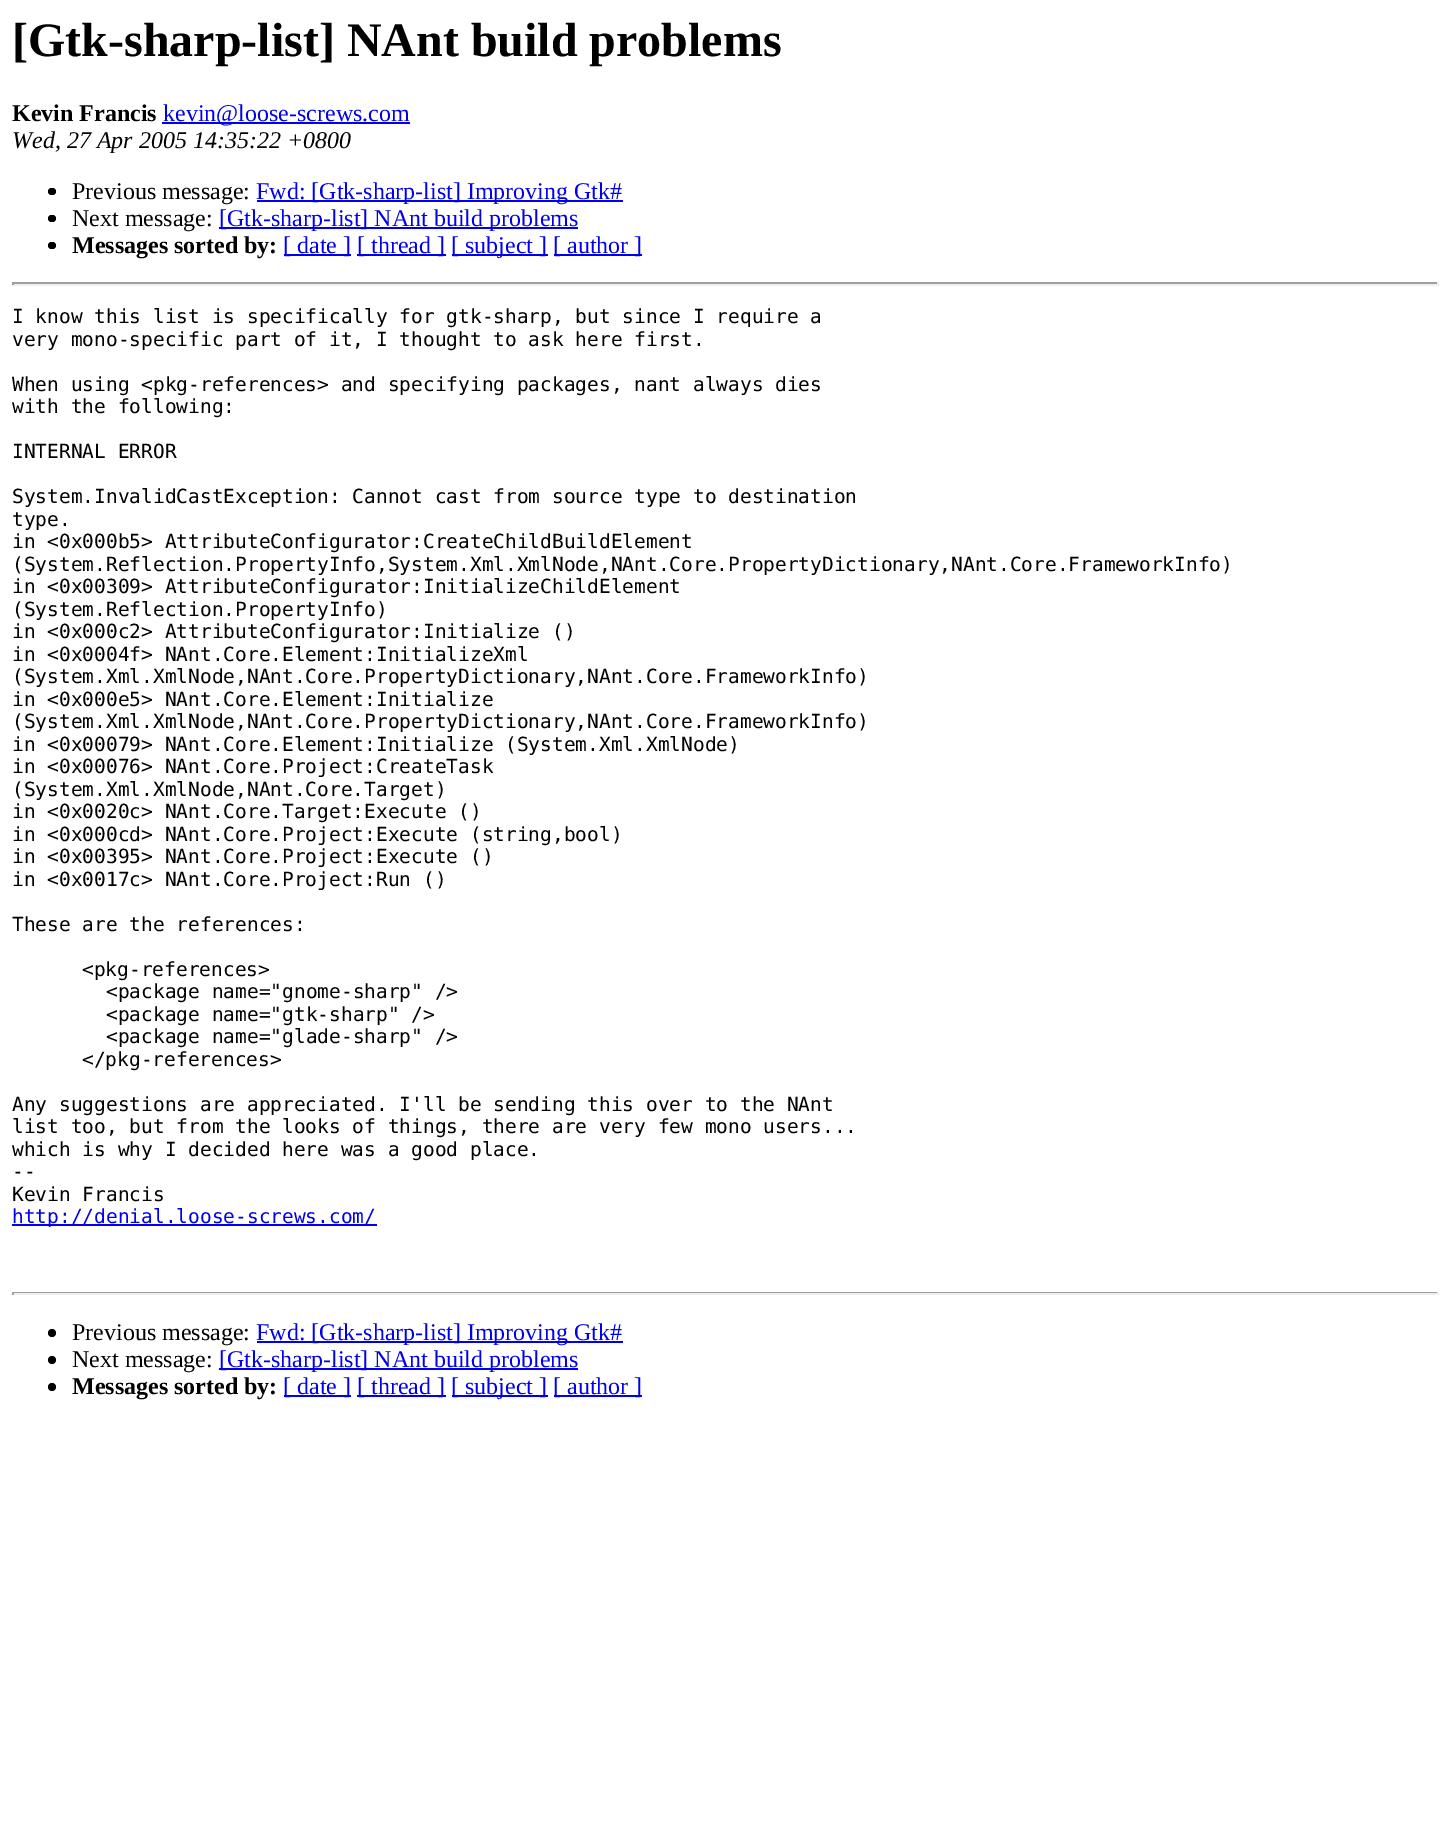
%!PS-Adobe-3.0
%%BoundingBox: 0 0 1450 1825
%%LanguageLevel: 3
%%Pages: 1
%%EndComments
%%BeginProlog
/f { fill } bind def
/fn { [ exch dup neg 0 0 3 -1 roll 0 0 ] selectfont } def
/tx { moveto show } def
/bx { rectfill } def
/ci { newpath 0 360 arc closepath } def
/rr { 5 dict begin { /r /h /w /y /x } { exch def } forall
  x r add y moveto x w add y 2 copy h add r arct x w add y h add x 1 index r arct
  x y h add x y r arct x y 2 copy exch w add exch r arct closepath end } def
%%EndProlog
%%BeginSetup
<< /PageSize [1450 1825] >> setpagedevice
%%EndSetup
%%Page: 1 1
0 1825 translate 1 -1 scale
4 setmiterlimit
1 setgray
0 0 1450 1825 bx
/LiberationSerif-Bold 48 fn
0 setgray
([Gtk-sharp-list] NAnt build problems) 12 56 tx
/LiberationSerif-Bold 24 fn
(Kevin Francis) 12 121 tx
0 0 0.933 setrgbcolor
162 122 248 2 bx
/LiberationSerif-Regular 24 fn
(kevin@loose-screws.com) 163 121 tx
/LiberationSerif-Italic 24 fn
0 setgray
(Wed, 27 Apr 2005 14:35:22 +0800) 12 148 tx
48 188 8 7 3.5 rr f
/LiberationSerif-Regular 24 fn
(Previous message:) 72 199 tx
0 0 0.933 setrgbcolor
257 200 366 2 bx
(Fwd: [Gtk-sharp-list] Improving Gtk#) 256 199 tx
0 setgray
48 215 8 7 3.5 rr f
(Next message:) 72 226 tx
0 0 0.933 setrgbcolor
219 227 359 2 bx
([Gtk-sharp-list] NAnt build problems) 219 226 tx
0 setgray
48 242 8 7 3.5 rr f
/LiberationSerif-Bold 24 fn
(Messages sorted by:) 72 253 tx
0 0 0.933 setrgbcolor
284 254 67 2 bx
/LiberationSerif-Regular 24 fn
([ date ]) 283 253 tx
357 254 89 2 bx
([ thread ]) 357 253 tx
452 254 96 2 bx
([ subject ]) 451 253 tx
554 254 88 2 bx
([ author ]) 553 253 tx
0.624 setgray
12 282 1427 2 bx
0.933 setgray
1437 282 2 3 bx
12 284 1427 2 bx
0.624 setgray
12 282 2 3 bx
/DejaVuSansMono-Regular 19.5 fn
0 setgray
(I know this list is specifically for gtk-sharp, but since I require a) 12 323 tx
(very mono-specific part of it, I thought to ask here first.) 12 346 tx
(When using <pkg-references> and specifying packages, nant always dies) 12 391 tx
(with the following:) 12 413 tx
(INTERNAL ERROR) 12 458 tx
(System.InvalidCastException: Cannot cast from source type to destination) 12 503 tx
(type.) 12 526 tx
(in <0x000b5> AttributeConfigurator:CreateChildBuildElement) 12 548 tx
(\(System.Reflection.PropertyInfo,System.Xml.XmlNode,NAnt.Core.PropertyDictionary,NAnt.Core.FrameworkInfo\)) 12 571 tx
(in <0x00309> AttributeConfigurator:InitializeChildElement) 12 593 tx
(\(System.Reflection.PropertyInfo\)) 12 616 tx
(in <0x000c2> AttributeConfigurator:Initialize \(\)) 12 638 tx
(in <0x0004f> NAnt.Core.Element:InitializeXml) 12 661 tx
(\(System.Xml.XmlNode,NAnt.Core.PropertyDictionary,NAnt.Core.FrameworkInfo\)) 12 683 tx
(in <0x000e5> NAnt.Core.Element:Initialize) 12 706 tx
(\(System.Xml.XmlNode,NAnt.Core.PropertyDictionary,NAnt.Core.FrameworkInfo\)) 12 728 tx
(in <0x00079> NAnt.Core.Element:Initialize \(System.Xml.XmlNode\)) 12 751 tx
(in <0x00076> NAnt.Core.Project:CreateTask) 12 773 tx
(\(System.Xml.XmlNode,NAnt.Core.Target\)) 12 796 tx
(in <0x0020c> NAnt.Core.Target:Execute \(\)) 12 818 tx
(in <0x000cd> NAnt.Core.Project:Execute \(string,bool\)) 12 841 tx
(in <0x00395> NAnt.Core.Project:Execute \(\)) 12 863 tx
(in <0x0017c> NAnt.Core.Project:Run \(\)) 12 886 tx
(These are the references:) 12 931 tx
(<pkg-references>) 82 976 tx
(<package name="gnome-sharp" />) 106 998 tx
(<package name="gtk-sharp" />) 106 1021 tx
(<package name="glade-sharp" />) 106 1043 tx
(</pkg-references>) 82 1066 tx
(Any suggestions are appreciated. I'll be sending this over to the NAnt) 12 1111 tx
(list too, but from the looks of things, there are very few mono users...) 12 1133 tx
(which is why I decided here was a good place.) 12 1156 tx
(--) 12 1178 tx
(Kevin Francis) 12 1201 tx
0 0 0.933 setrgbcolor
12 1224 365 2 bx
(http://denial.loose-screws.com/) 12 1223 tx
0.624 setgray
12 1292 1427 1 bx
0.933 setgray
1437 1292 2 3 bx
12 1293 1427 2 bx
0.624 setgray
12 1292 2 3 bx
0 setgray
52 1333 4 ci f
/LiberationSerif-Regular 24 fn
(Previous message:) 72 1340 tx
0 0 0.933 setrgbcolor
257 1341 366 2 bx
(Fwd: [Gtk-sharp-list] Improving Gtk#) 256 1340 tx
0 setgray
52 1360 4 ci f
(Next message:) 72 1367 tx
0 0 0.933 setrgbcolor
219 1368 359 2 bx
([Gtk-sharp-list] NAnt build problems) 219 1367 tx
0 setgray
52 1387 4 ci f
/LiberationSerif-Bold 24 fn
(Messages sorted by:) 72 1394 tx
0 0 0.933 setrgbcolor
284 1395 67 2 bx
/LiberationSerif-Regular 24 fn
([ date ]) 283 1394 tx
357 1395 89 2 bx
([ thread ]) 357 1394 tx
452 1395 96 2 bx
([ subject ]) 451 1394 tx
554 1395 88 2 bx
([ author ]) 553 1394 tx
showpage
%%EOF
